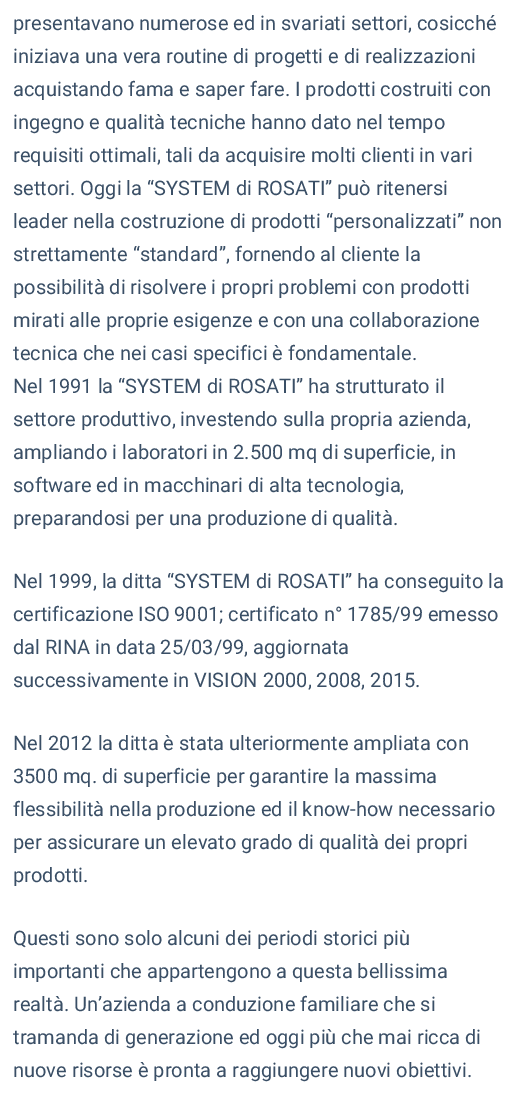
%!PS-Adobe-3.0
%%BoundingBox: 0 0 518 1112
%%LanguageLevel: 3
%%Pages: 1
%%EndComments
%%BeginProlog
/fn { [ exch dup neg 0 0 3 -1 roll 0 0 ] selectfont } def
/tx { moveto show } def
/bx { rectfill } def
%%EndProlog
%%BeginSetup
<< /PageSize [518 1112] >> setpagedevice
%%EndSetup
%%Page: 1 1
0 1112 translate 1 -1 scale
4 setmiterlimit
1 setgray
0 0 518 1112 bx
/Roboto-Regular 20 fn
0.227 0.31 0.4 setrgbcolor
(presentavano numerose ed in svariati settori, cosicché) 13 30 tx
(iniziava una vera routine di progetti e di realizzazioni) 13 63 tx
(acquistando fama e saper fare. I prodotti costruiti con) 13 96 tx
(ingegno e qualità tecniche hanno dato nel tempo) 13 129 tx
(requisiti ottimali, tali da acquisire molti clienti in vari) 13 162 tx
(settori. Oggi la “SYSTEM di ROSATI” può ritenersi) 13 195 tx
(leader nella costruzione di prodotti “personalizzati” non) 13 228 tx
(strettamente “standard”, fornendo al cliente la) 13 261 tx
(possibilità di risolvere i propri problemi con prodotti) 13 294 tx
(mirati alle proprie esigenze e con una collaborazione) 13 327 tx
(tecnica che nei casi specifici è fondamentale.) 13 360 tx
(Nel 1991 la “SYSTEM di ROSATI” ha strutturato il) 13 393 tx
(settore produttivo, investendo sulla propria azienda,) 13 426 tx
(ampliando i laboratori in 2.500 mq di superficie, in) 13 459 tx
(software ed in macchinari di alta tecnologia,) 13 492 tx
(preparandosi per una produzione di qualità.) 13 525 tx
(Nel 1999, la ditta “SYSTEM di ROSATI” ha conseguito la) 13 588 tx
(certificazione ISO 9001; certificato n° 1785/99 emesso) 13 621 tx
(dal RINA in data 25/03/99, aggiornata) 13 654 tx
(successivamente in VISION 2000, 2008, 2015.) 13 687 tx
(Nel 2012 la ditta è stata ulteriormente ampliata con) 13 750 tx
(3500 mq. di superficie per garantire la massima) 13 783 tx
(flessibilità nella produzione ed il know-how necessario) 13 816 tx
(per assicurare un elevato grado di qualità dei propri) 13 849 tx
(prodotti.) 13 882 tx
(Questi sono solo alcuni dei periodi storici più) 13 945 tx
(importanti che appartengono a questa bellissima) 13 978 tx
(realtà. Un’azienda a conduzione familiare che si) 13 1011 tx
(tramanda di generazione ed oggi più che mai ricca di) 13 1044 tx
(nuove risorse è pronta a raggiungere nuovi obiettivi.) 13 1077 tx
showpage
%%EOF
